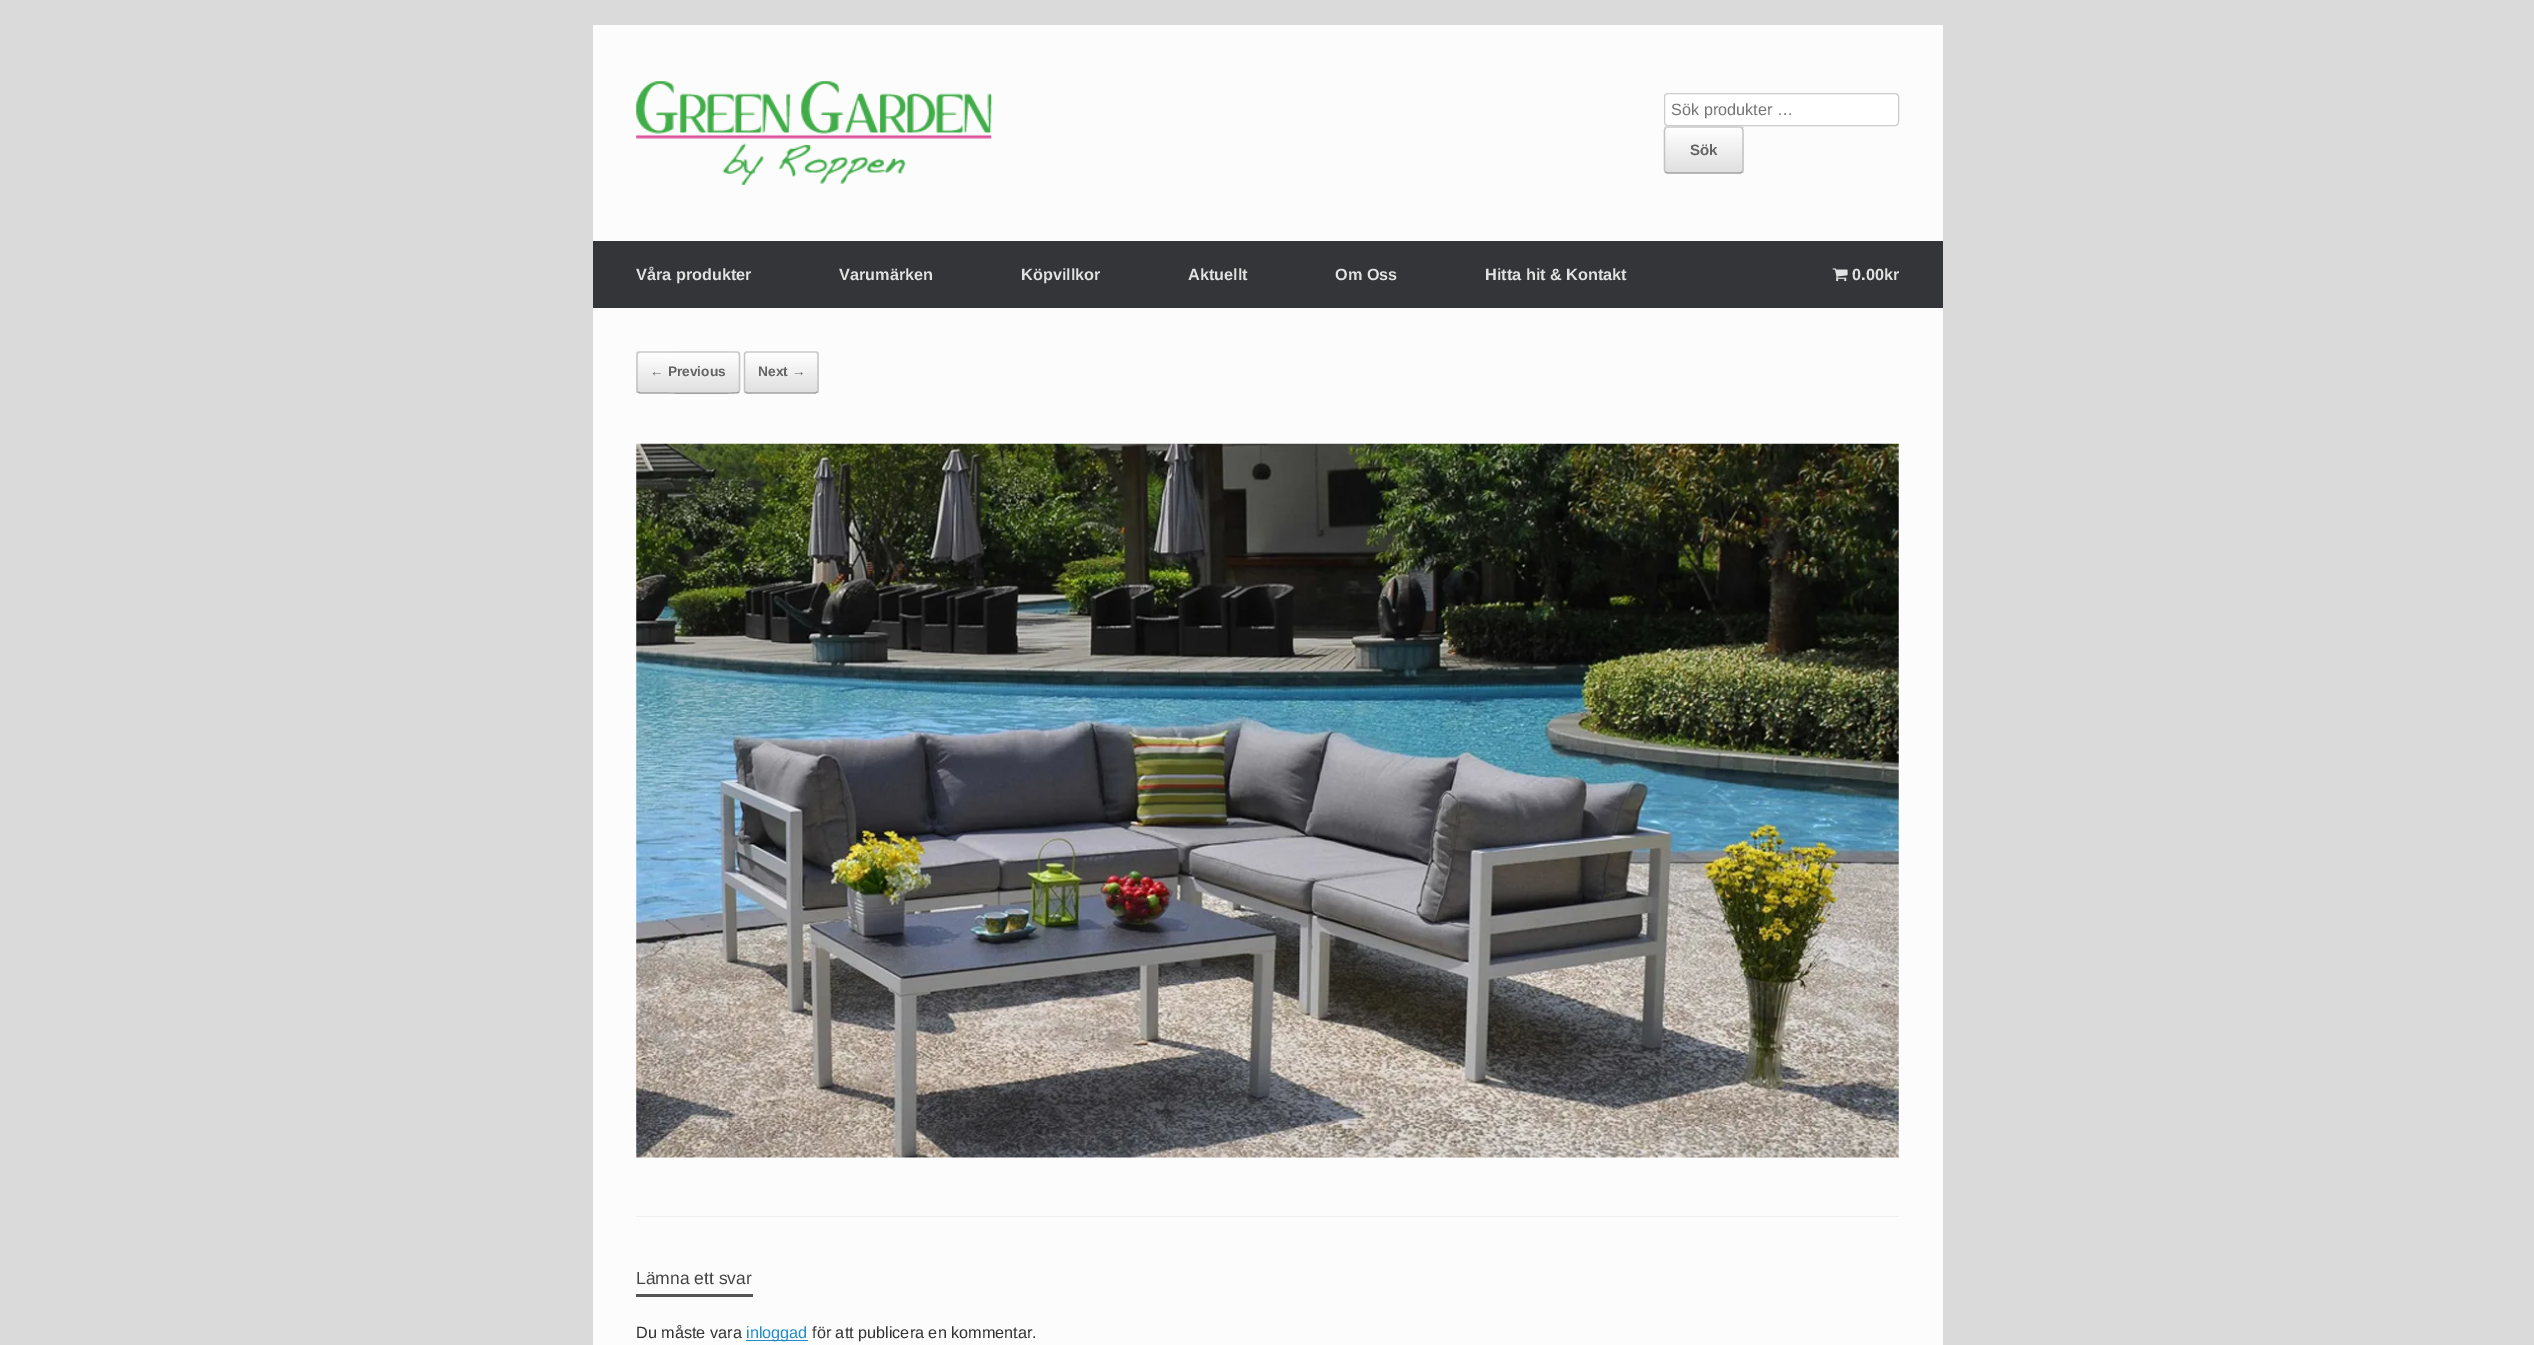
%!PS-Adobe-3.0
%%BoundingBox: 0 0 2534 1345
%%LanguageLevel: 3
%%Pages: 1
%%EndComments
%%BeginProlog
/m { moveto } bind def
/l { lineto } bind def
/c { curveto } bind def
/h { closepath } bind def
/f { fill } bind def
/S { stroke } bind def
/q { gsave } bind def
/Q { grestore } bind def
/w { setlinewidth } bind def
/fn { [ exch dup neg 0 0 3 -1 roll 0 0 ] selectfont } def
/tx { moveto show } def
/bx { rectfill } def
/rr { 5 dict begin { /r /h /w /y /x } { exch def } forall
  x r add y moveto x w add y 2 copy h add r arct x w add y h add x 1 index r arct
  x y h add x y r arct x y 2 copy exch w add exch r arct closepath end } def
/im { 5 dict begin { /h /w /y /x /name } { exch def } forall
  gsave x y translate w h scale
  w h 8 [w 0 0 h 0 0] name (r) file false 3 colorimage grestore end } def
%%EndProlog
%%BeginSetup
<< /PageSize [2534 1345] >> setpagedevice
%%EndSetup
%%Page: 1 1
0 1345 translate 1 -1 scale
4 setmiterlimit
0.855 setgray
0 0 2534 1345 bx
0.988 setgray
593 25 1350 216 bx
(image0.raw) 636 81 356 104 im
1 setgray
1664.5 93.5 234 32 3.5 rr q f Q
0.8 setgray
S
/LiberationSans-Regular 16.25 fn
0.459 setgray
(Sök produkter …) 1671 115 tx
q
1664 126 80 48 4 rr clip newpath
q 1664 126 m 1744 126 l 1744 128 l 1664 128 l h clip newpath
<< /ShadingType 2 /ColorSpace /DeviceRGB /Coords [1665 128 1665 83] /Extend [true true] /Function << /FunctionType 2 /Domain [0 1] /C0 [0.875 0.875 0.875] /C1 [1 1 1] /N 1 >> >> shfill Q
q 1664 128 m 1744 128 l 1744 173 l 1664 173 l h clip newpath
<< /ShadingType 2 /ColorSpace /DeviceRGB /Coords [1665 173 1665 128] /Extend [true true] /Function << /FunctionType 2 /Domain [0 1] /C0 [0.875 0.875 0.875] /C1 [1 1 1] /N 1 >> >> shfill Q
q 1664 173 m 1744 173 l 1744 174 l 1664 174 l h clip newpath
<< /ShadingType 2 /ColorSpace /DeviceRGB /Coords [1665 218 1665 173] /Extend [true true] /Function << /FunctionType 2 /Domain [0 1] /C0 [0.875 0.875 0.875] /C1 [1 1 1] /N 1 >> >> shfill Q
Q
0.824 setgray
1.2 w
1665.5 128 m 1667 127 l 1740.5 127 l 1742 128 l S
0.765 setgray
1742 128 m 1743 130 l 1743 170 l 1742 172 l S
0.624 setgray
1742 172 m 1740.5 173 l 1667 173 l 1665.5 172 l S
0.765 setgray
1665.5 172 m 1664.5 170 l 1664.5 130 l 1665.5 128 l S
/LiberationSans-Bold 15 fn
0.392 setgray
(Sök) 1690 155 tx
0.204 0.208 0.22 setrgbcolor
593 241 1350 67 bx
/LiberationSans-Bold 16.25 fn
0.886 setgray
(Våra produkter) 636 280 tx
(Varumärken) 839 280 tx
(Köpvillkor) 1021 280 tx
(Aktuellt) 1188 280 tx
(Om Oss) 1335 280 tx
(Hitta hit & Kontakt) 1485 280 tx
(image1.raw) 1832 268 16 14 im
(0.00kr) 1852 280 tx
0.988 setgray
593 308 1350 1037 bx
0.933 setgray
636 1216 1263 1 bx
q
636 351 104 43 4 rr clip newpath
q 636 351 m 740 351 l 740 353 l 636 353 l h clip newpath
<< /ShadingType 2 /ColorSpace /DeviceRGB /Coords [638 353 638 313] /Extend [true true] /Function << /FunctionType 2 /Domain [0 1] /C0 [0.875 0.875 0.875] /C1 [1 1 1] /N 1 >> >> shfill Q
q 636 353 m 740 353 l 740 393 l 636 393 l h clip newpath
<< /ShadingType 2 /ColorSpace /DeviceRGB /Coords [638 393 638 353] /Extend [true true] /Function << /FunctionType 2 /Domain [0 1] /C0 [0.875 0.875 0.875] /C1 [1 1 1] /N 1 >> >> shfill Q
q 636 393 m 740 393 l 740 394 l 636 394 l h clip newpath
<< /ShadingType 2 /ColorSpace /DeviceRGB /Coords [638 433 638 393] /Extend [true true] /Function << /FunctionType 2 /Domain [0 1] /C0 [0.875 0.875 0.875] /C1 [1 1 1] /N 1 >> >> shfill Q
Q
0.824 setgray
638 353 m 640 352 l 656 352 l 665 352 736 351 738 352.5 c 738.5 353 l S
0.765 setgray
738.5 353 m 739 353.5 739.5 354 739.5 355 c 739.5 390 l 739.5 391 739 391.5 738.5 392 c S
0.624 setgray
738.5 392 m 738 392.5 l 736 394 665 393 656 393 c 640 393 l 638 392 l S
0.765 setgray
638 392 m 637 391.5 637 391 637 390 c 637 355 l 637 354 637 353.5 638 353 c S
/LiberationSans-Bold 13.75 fn
0.392 setgray
(← Previous) 650 376 tx
q
744 351 75 43 4 rr clip newpath
q 744 351 m 819 351 l 819 353 l 744 353 l h clip newpath
<< /ShadingType 2 /ColorSpace /DeviceRGB /Coords [745 353 745 313] /Extend [true true] /Function << /FunctionType 2 /Domain [0 1] /C0 [0.875 0.875 0.875] /C1 [1 1 1] /N 1 >> >> shfill Q
q 744 353 m 819 353 l 819 393 l 744 393 l h clip newpath
<< /ShadingType 2 /ColorSpace /DeviceRGB /Coords [745 393 745 353] /Extend [true true] /Function << /FunctionType 2 /Domain [0 1] /C0 [0.875 0.875 0.875] /C1 [1 1 1] /N 1 >> >> shfill Q
q 744 393 m 819 393 l 819 394 l 744 394 l h clip newpath
<< /ShadingType 2 /ColorSpace /DeviceRGB /Coords [745 433 745 393] /Extend [true true] /Function << /FunctionType 2 /Domain [0 1] /C0 [0.875 0.875 0.875] /C1 [1 1 1] /N 1 >> >> shfill Q
Q
0.824 setgray
745.5 353 m 747 352 l 815.5 352 l 817 353 l S
0.765 setgray
817 353 m 818 353.5 818 354 818 355 c 818 390 l 818 391 818 391.5 817 392 c S
0.624 setgray
817 392 m 815.5 393 l 747 393 l 745.5 392 l S
0.765 setgray
745.5 392 m 744.5 391.5 744.5 391 744.5 390 c 744.5 355 l 744.5 354 744.5 353.5 745.5 353 c S
0.392 setgray
(Next →) 758 376 tx
(image2.raw) 636 443 1263 715 im
0.333 setgray
636 1294 117 3 bx
/LiberationSans-Regular 17.5 fn
0.267 setgray
(Lämna ett svar) 636 1284 tx
/LiberationSans-Regular 16.25 fn
0.2 setgray
(Du måste vara) 636 1338 tx
0.141 0.549 0.784 setrgbcolor
746 1340 62 1 bx
(inloggad) 746 1338 tx
0.2 setgray
(för att publicera en kommentar.) 812 1338 tx
showpage
%%EOF
